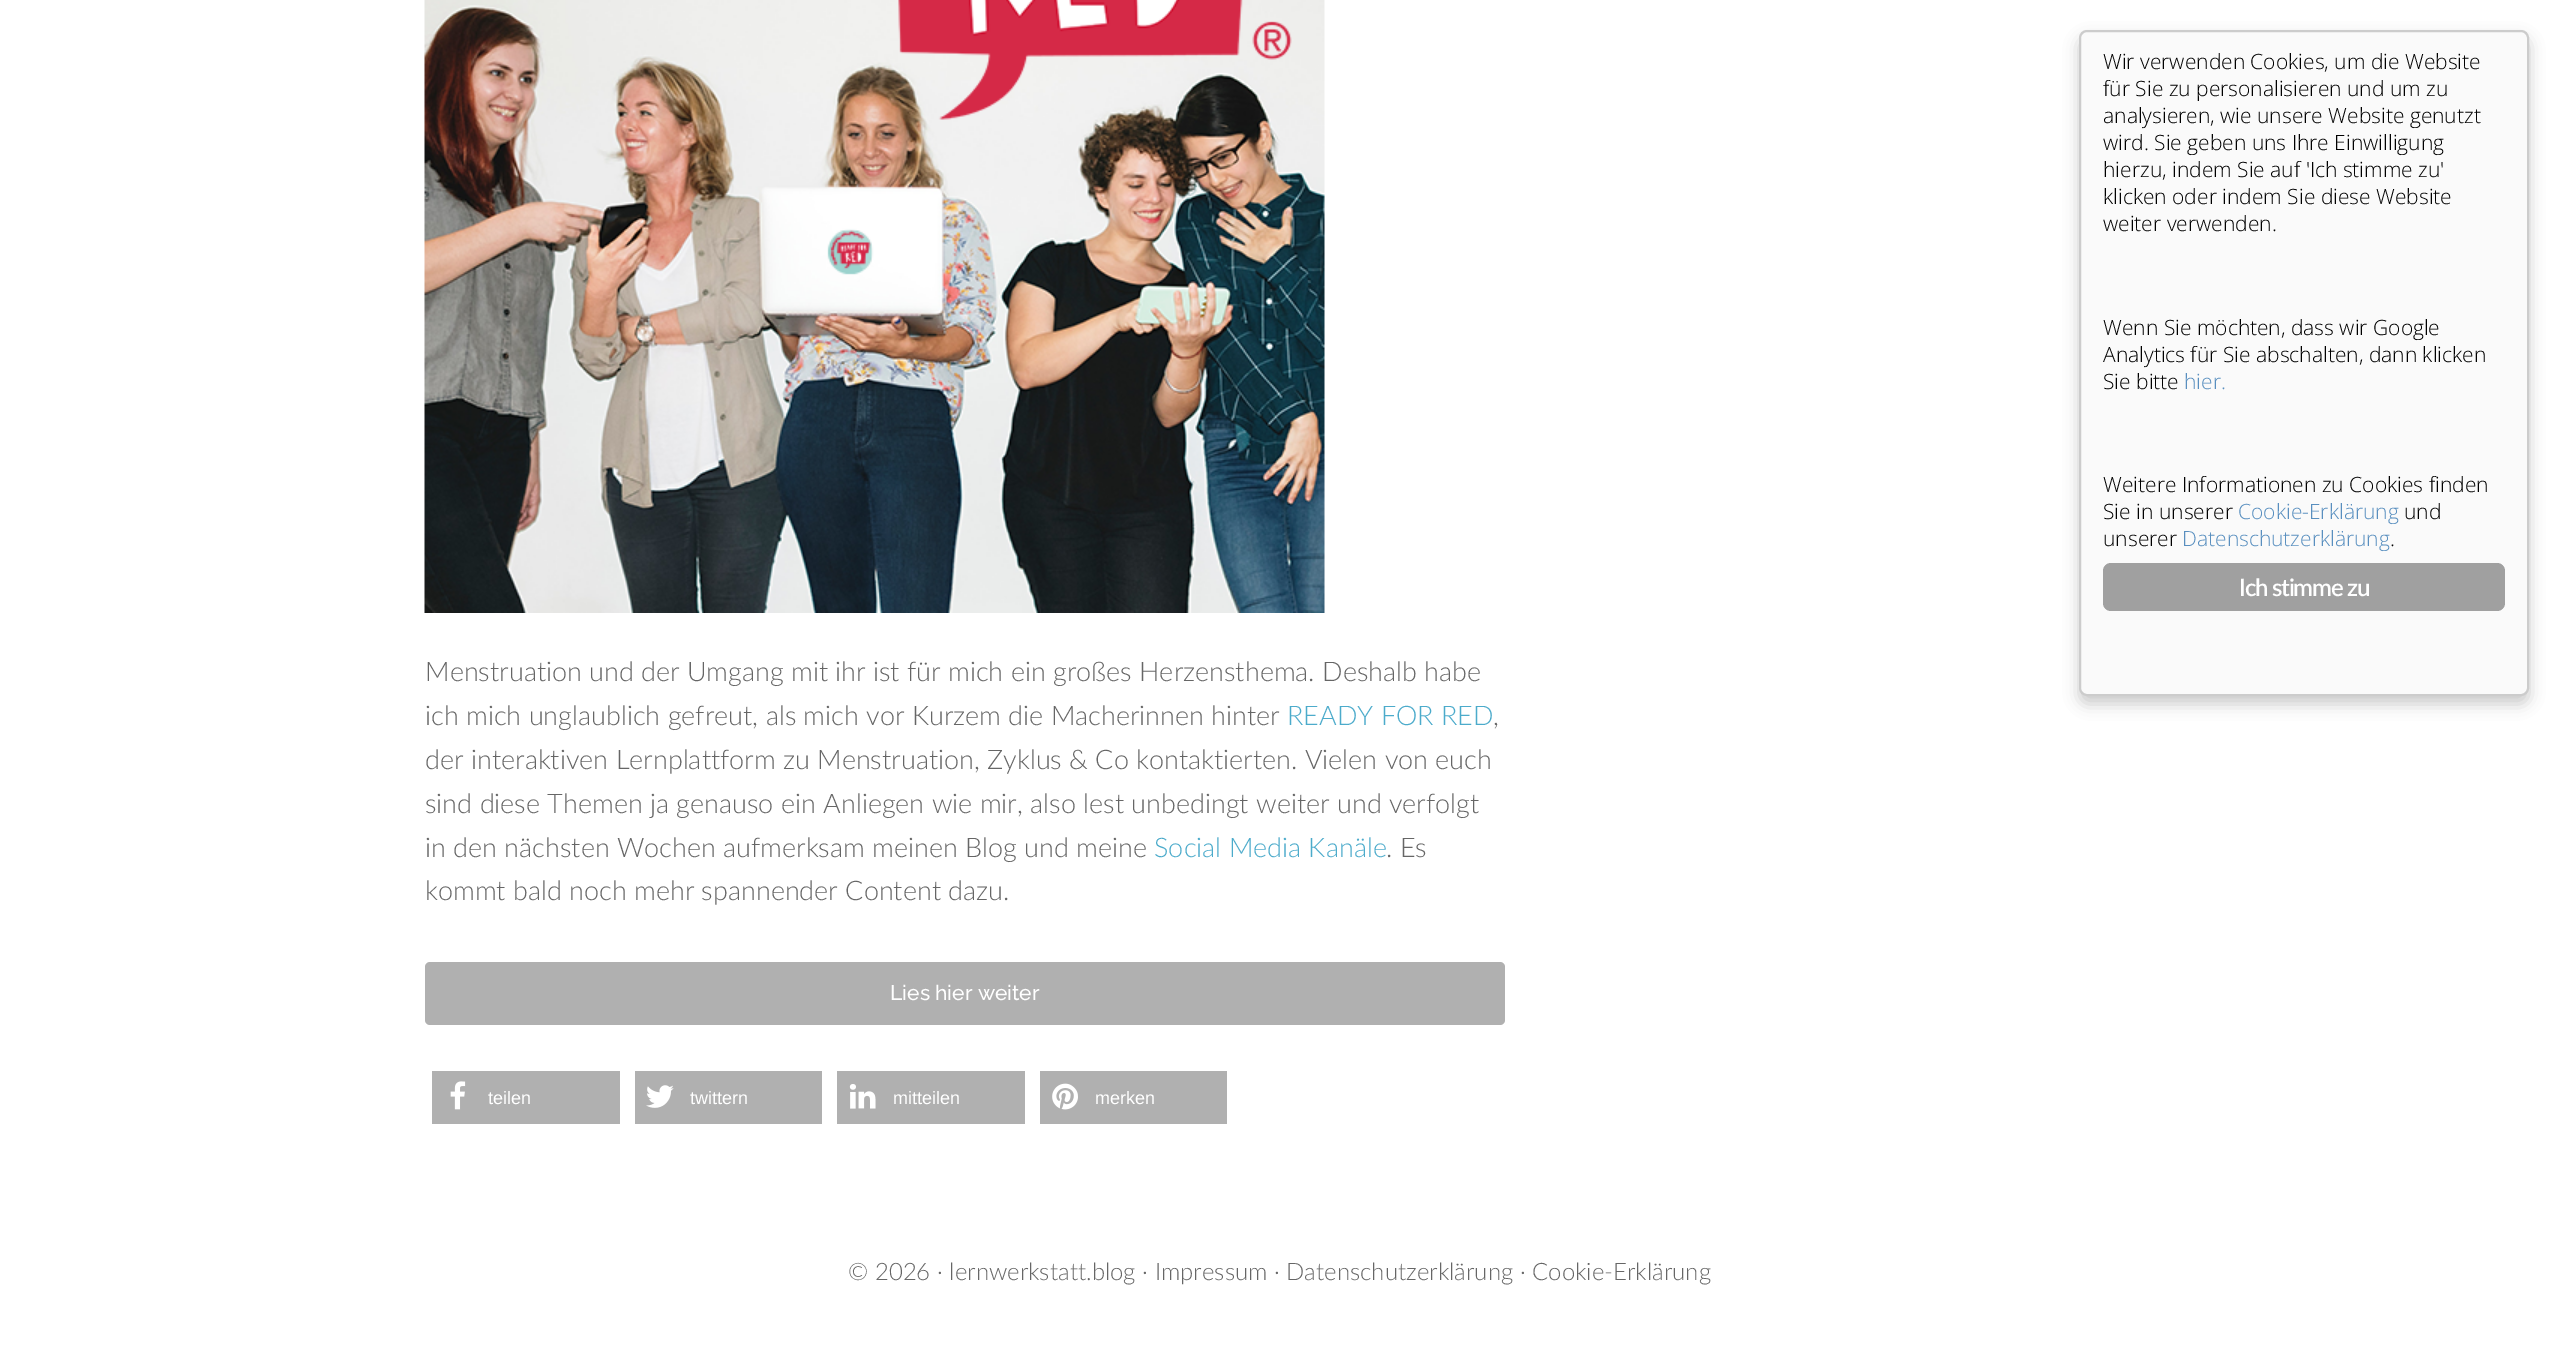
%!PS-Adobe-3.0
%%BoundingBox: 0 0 2558 1350
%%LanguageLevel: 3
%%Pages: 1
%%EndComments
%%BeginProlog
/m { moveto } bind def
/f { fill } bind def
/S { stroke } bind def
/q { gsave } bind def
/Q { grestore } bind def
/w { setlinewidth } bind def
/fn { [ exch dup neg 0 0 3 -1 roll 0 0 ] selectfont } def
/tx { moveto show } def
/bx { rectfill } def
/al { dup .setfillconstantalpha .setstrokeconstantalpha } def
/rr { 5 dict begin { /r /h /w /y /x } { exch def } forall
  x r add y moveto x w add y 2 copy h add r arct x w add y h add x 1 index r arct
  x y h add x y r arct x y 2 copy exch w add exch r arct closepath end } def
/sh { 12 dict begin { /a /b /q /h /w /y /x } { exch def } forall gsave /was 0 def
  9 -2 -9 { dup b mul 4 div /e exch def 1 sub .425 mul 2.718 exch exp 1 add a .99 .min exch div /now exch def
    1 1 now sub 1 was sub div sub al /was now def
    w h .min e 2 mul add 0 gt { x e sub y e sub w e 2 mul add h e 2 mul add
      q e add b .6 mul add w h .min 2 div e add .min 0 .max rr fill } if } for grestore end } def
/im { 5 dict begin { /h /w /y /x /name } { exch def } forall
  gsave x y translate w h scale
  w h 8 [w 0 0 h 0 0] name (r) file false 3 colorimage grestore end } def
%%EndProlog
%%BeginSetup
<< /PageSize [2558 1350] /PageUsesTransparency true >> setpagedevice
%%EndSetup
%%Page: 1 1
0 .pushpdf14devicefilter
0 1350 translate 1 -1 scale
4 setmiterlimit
1 setgray
0 0 2558 1350 bx
0 setgray
2079 38 450 666 8 7.5 0.2 sh
0.98 setgray
2080 31 448 664 7 rr q f Q
0.8 setgray
2 w
S
/OpenSans-Light 21 fn
0 setgray
(Wir verwenden Cookies, um die Website) 2103 69 tx
(für Sie zu personalisieren und um zu) 2103 96 tx
(analysieren, wie unsere Website genutzt) 2103 123 tx
(wird. Sie geben uns Ihre Einwilligung) 2103 150 tx
(hierzu, indem Sie auf 'Ich stimme zu') 2103 177 tx
(klicken oder indem Sie diese Website) 2103 204 tx
(weiter verwenden.) 2103 231 tx
(Wenn Sie möchten, dass wir Google) 2103 335 tx
(Analytics für Sie abschalten, dann klicken) 2103 362 tx
(Sie bitte) 2103 389 tx
0.349 0.561 0.749 setrgbcolor
(hier.) 2184 389 tx
0 setgray
(Weitere Informationen zu Cookies finden) 2103 492 tx
(Sie in unserer) 2103 519 tx
0.349 0.561 0.749 setrgbcolor
(Cookie-Erklärung) 2238 519 tx
0 setgray
(und) 2404 519 tx
(unserer) 2103 546 tx
0.349 0.561 0.749 setrgbcolor
(Datenschutzerklärung) 2182 546 tx
0 setgray
(.) 2390 546 tx
0.627 setgray
2103 563 402 48 8 rr f
/Lato-SemiBold 24 fn
1 setgray
2239 596 m -1.25 0 (Ich stimme zu) ashow
(image0.raw) 424 0 901 613 im
/Lato-Light 27 fn
0.4 setgray
(Menstruation und der Umgang mit ihr ist für mich ein großes Herzensthema. Deshalb habe) 425 681 tx
(ich mich unglaublich gefreut, als mich vor Kurzem die Macherinnen hinter) 425 725 tx
0.298 0.671 0.796 setrgbcolor
(READY FOR RED) 1287 725 tx
0.4 setgray
(,) 1493 725 tx
(der interaktiven Lernplattform zu Menstruation, Zyklus & Co kontaktierten. Vielen von euch) 425 769 tx
(sind diese Themen ja genauso ein Anliegen wie mir, also lest unbedingt weiter und verfolgt) 425 813 tx
(in den nächsten Wochen aufmerksam meinen Blog und meine) 425 857 tx
0.298 0.671 0.796 setrgbcolor
(Social Media Kanäle) 1154 857 tx
0.4 setgray
(. Es) 1386 857 tx
(kommt bald noch mehr spannender Content dazu.) 425 900 tx
0.69 setgray
425 962 1080 63 5 rr f
/Raleway-Medium 21 fn
1 setgray
(Lies hier weiter) 890 1000 tx
0.69 setgray
432 1071 188 53 bx
(image1.raw) 450 1081 16 29 im
/LiberationSans-Regular 18 fn
1 setgray
(teilen) 488 1104 tx
0.69 setgray
635 1071 187 53 bx
(image2.raw) 646 1085 28 23 im
1 setgray
(twittern) 690 1104 tx
0.69 setgray
837 1071 188 53 bx
(image3.raw) 849 1084 27 25 im
1 setgray
(mitteilen) 893 1104 tx
0.69 setgray
1040 1071 187 53 bx
(image4.raw) 1052 1083 26 27 im
1 setgray
(merken) 1095 1104 tx
/Lato-Light 24 fn
0.4 setgray
(© 2026 · lernwerkstatt.blog · Impressum · Datenschutzerklärung · Cookie-Erklärung) 848 1280 tx
.poppdf14devicefilter showpage
%%EOF
